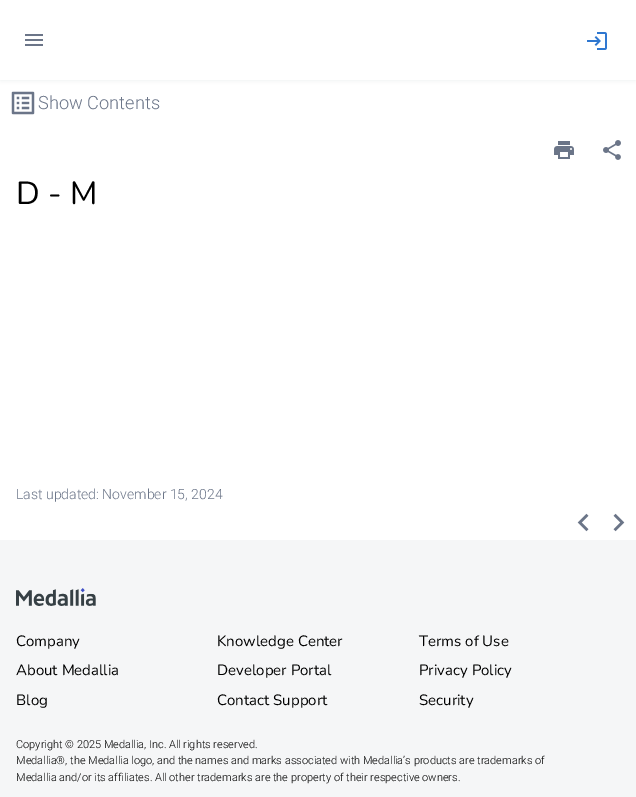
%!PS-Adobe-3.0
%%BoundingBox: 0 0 636 797
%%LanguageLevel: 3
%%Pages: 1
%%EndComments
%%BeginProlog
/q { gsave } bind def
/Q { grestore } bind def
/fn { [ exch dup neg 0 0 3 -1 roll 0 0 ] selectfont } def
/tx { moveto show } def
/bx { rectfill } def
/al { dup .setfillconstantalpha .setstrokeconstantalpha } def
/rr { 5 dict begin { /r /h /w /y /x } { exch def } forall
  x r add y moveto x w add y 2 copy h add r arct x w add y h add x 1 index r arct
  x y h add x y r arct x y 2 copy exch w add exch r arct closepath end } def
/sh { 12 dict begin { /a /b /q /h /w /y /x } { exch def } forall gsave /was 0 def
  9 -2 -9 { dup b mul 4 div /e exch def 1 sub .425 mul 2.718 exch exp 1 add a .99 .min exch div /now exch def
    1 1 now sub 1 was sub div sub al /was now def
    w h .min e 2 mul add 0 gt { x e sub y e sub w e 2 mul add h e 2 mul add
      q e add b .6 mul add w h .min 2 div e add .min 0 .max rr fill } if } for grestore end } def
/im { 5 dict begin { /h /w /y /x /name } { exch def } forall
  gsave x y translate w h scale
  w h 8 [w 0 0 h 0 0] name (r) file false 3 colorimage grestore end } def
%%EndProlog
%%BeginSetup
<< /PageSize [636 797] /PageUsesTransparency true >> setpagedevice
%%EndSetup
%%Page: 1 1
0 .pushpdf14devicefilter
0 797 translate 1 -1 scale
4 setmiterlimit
1 setgray
0 0 636 797 bx
q
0 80 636 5 rectclip
0.867 0.882 0.898 setrgbcolor
1 1 634 78 0 3 1 sh
Q
(image0.raw) 25 34 18 12 im
(image1.raw) 587 32 20 18 im
(image2.raw) 11 91 24 24 im
/Roboto-Light 18.25 fn
0.42 0.459 0.533 setrgbcolor
(Show Contents) 38 109 tx
(image3.raw) 554 141 20 18 im
(image4.raw) 603 140 18 20 im
/Nunito-Regular 32 fn
0 setgray
(D - M) 16 204 tx
/Roboto-Light 14 fn
0.42 0.459 0.533 setrgbcolor
(Last updated: November 15, 2024) 16 499 tx
(image5.raw) 577 513 12 19 im
(image6.raw) 613 513 12 19 im
0.961 0.965 0.969 setrgbcolor
0 540 636 257 bx
(image7.raw) 16 588 80 18 im
/Nunito-Regular 15 fn
0 setgray
(Company) 16 646 tx
(Knowledge Center) 217 646 tx
(Terms of Use) 419 646 tx
(About Medallia) 16 675 tx
(Developer Portal) 217 675 tx
(Privacy Policy) 419 675 tx
(Blog) 16 705 tx
(Contact Support) 217 705 tx
(Security) 419 705 tx
/Roboto-Light 11 fn
(Copyright © 2025 Medallia, Inc. All rights reserved.) 16 748 tx
(Medallia®, the Medallia logo, and the names and marks associated with Medallia’s products are trademarks of) 16 764 tx
(Medallia and/or its affiliates. All other trademarks are the property of their respective owners.) 16 781 tx
.poppdf14devicefilter showpage
%%EOF
